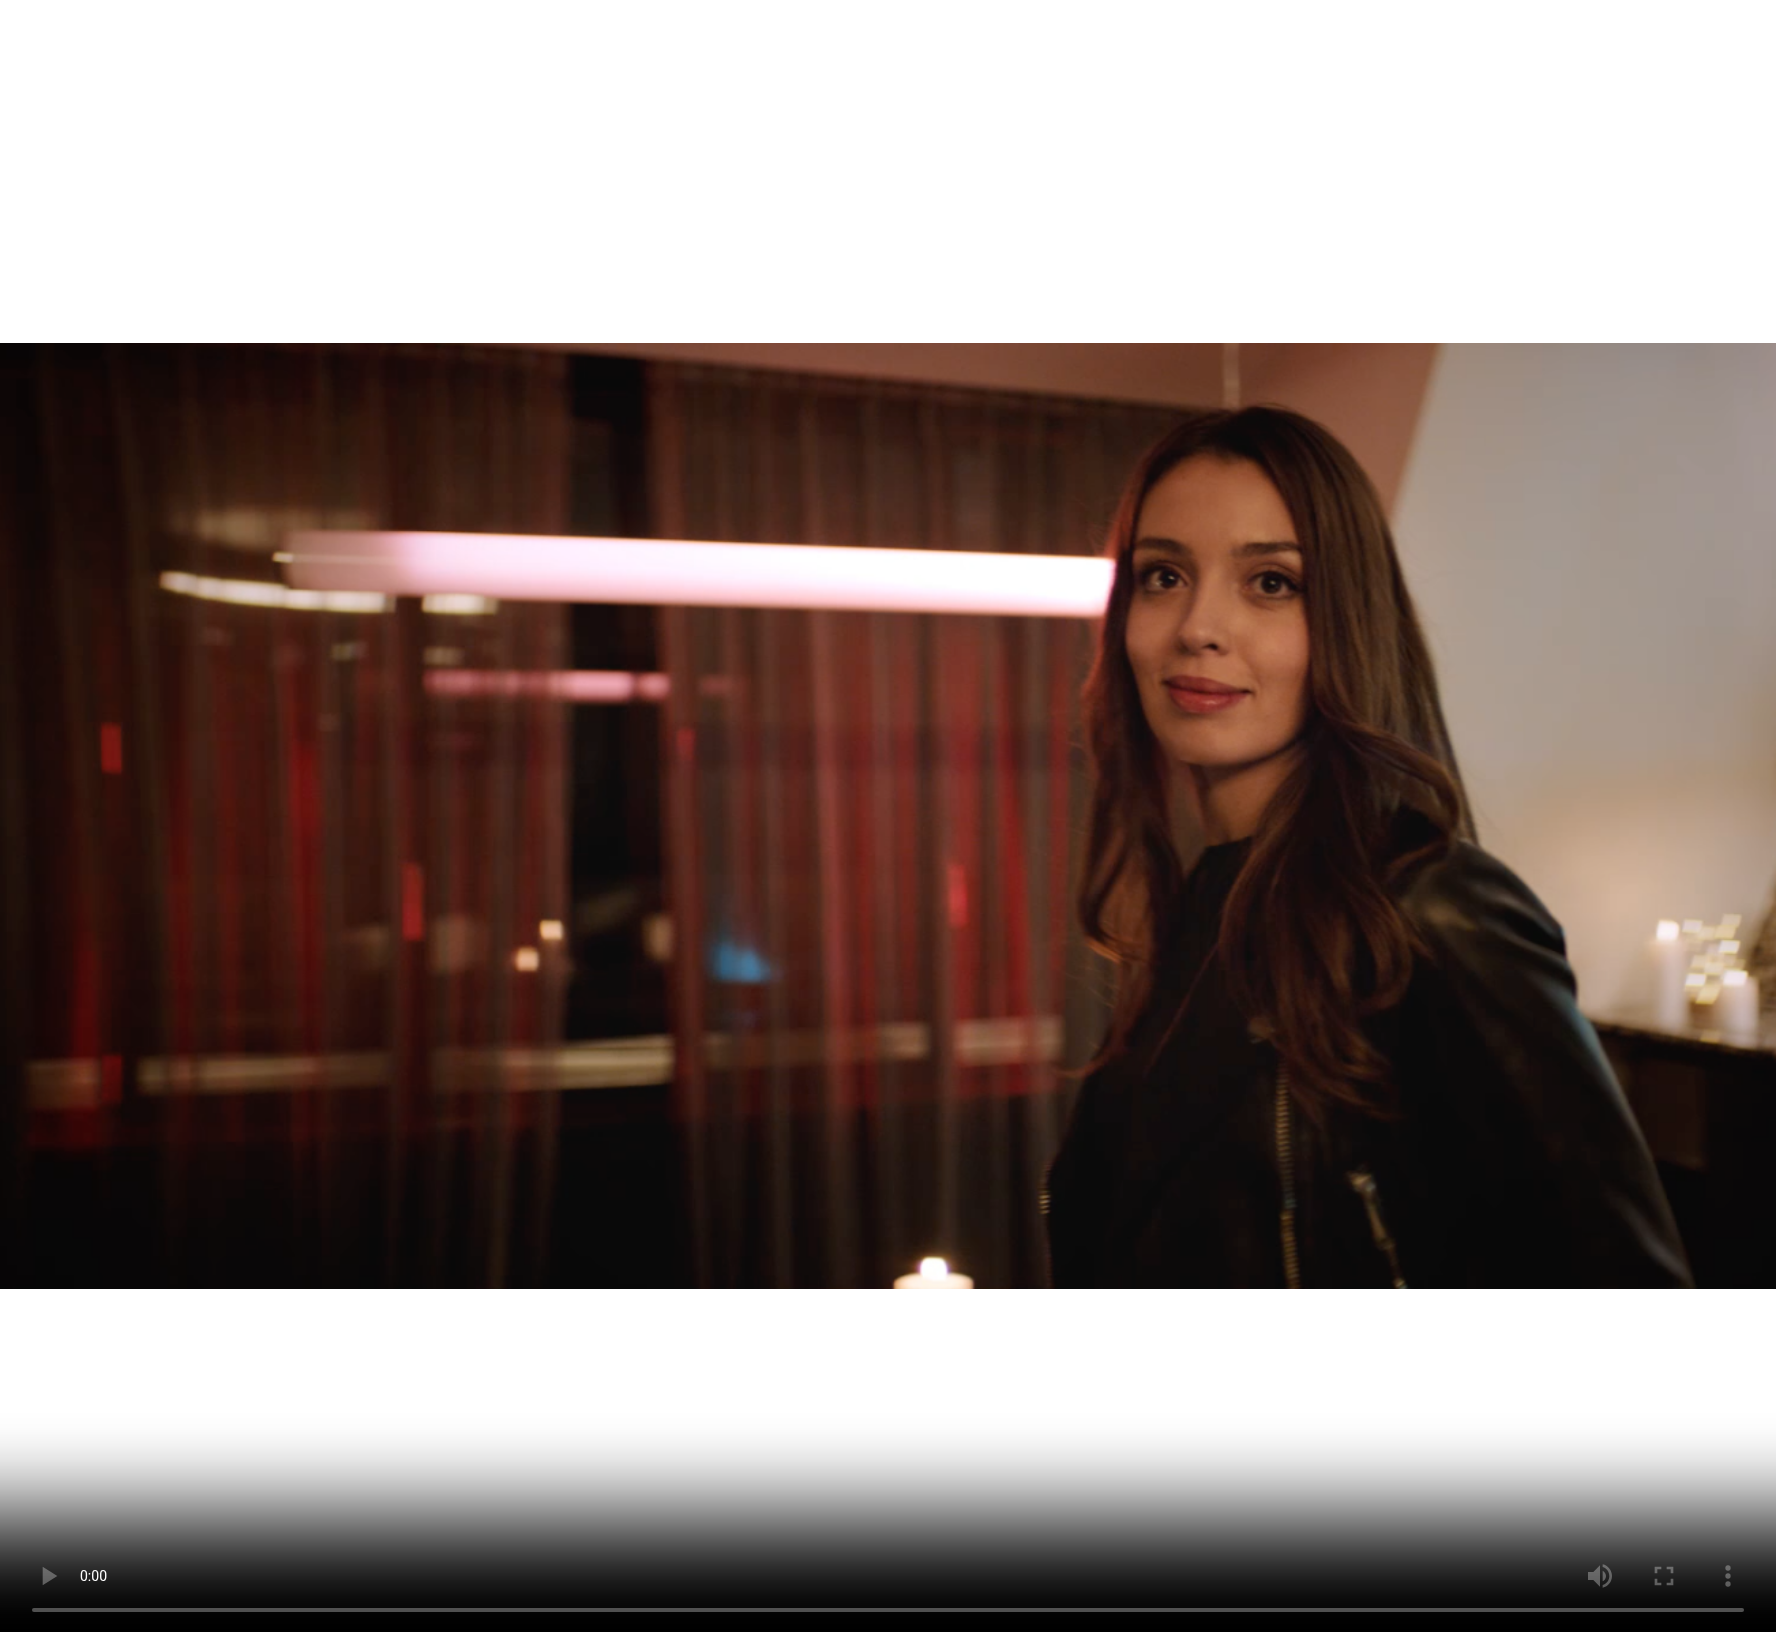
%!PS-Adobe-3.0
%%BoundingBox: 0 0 1776 1632
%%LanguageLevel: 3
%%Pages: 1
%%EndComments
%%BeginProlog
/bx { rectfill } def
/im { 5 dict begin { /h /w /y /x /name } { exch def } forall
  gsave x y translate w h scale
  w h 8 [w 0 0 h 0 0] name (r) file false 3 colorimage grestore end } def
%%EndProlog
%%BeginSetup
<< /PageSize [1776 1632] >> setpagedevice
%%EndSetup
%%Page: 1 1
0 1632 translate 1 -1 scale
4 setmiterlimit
1 setgray
0 0 1776 1632 bx
(image0.raw) 0 343 1776 1289 im
showpage
%%EOF
